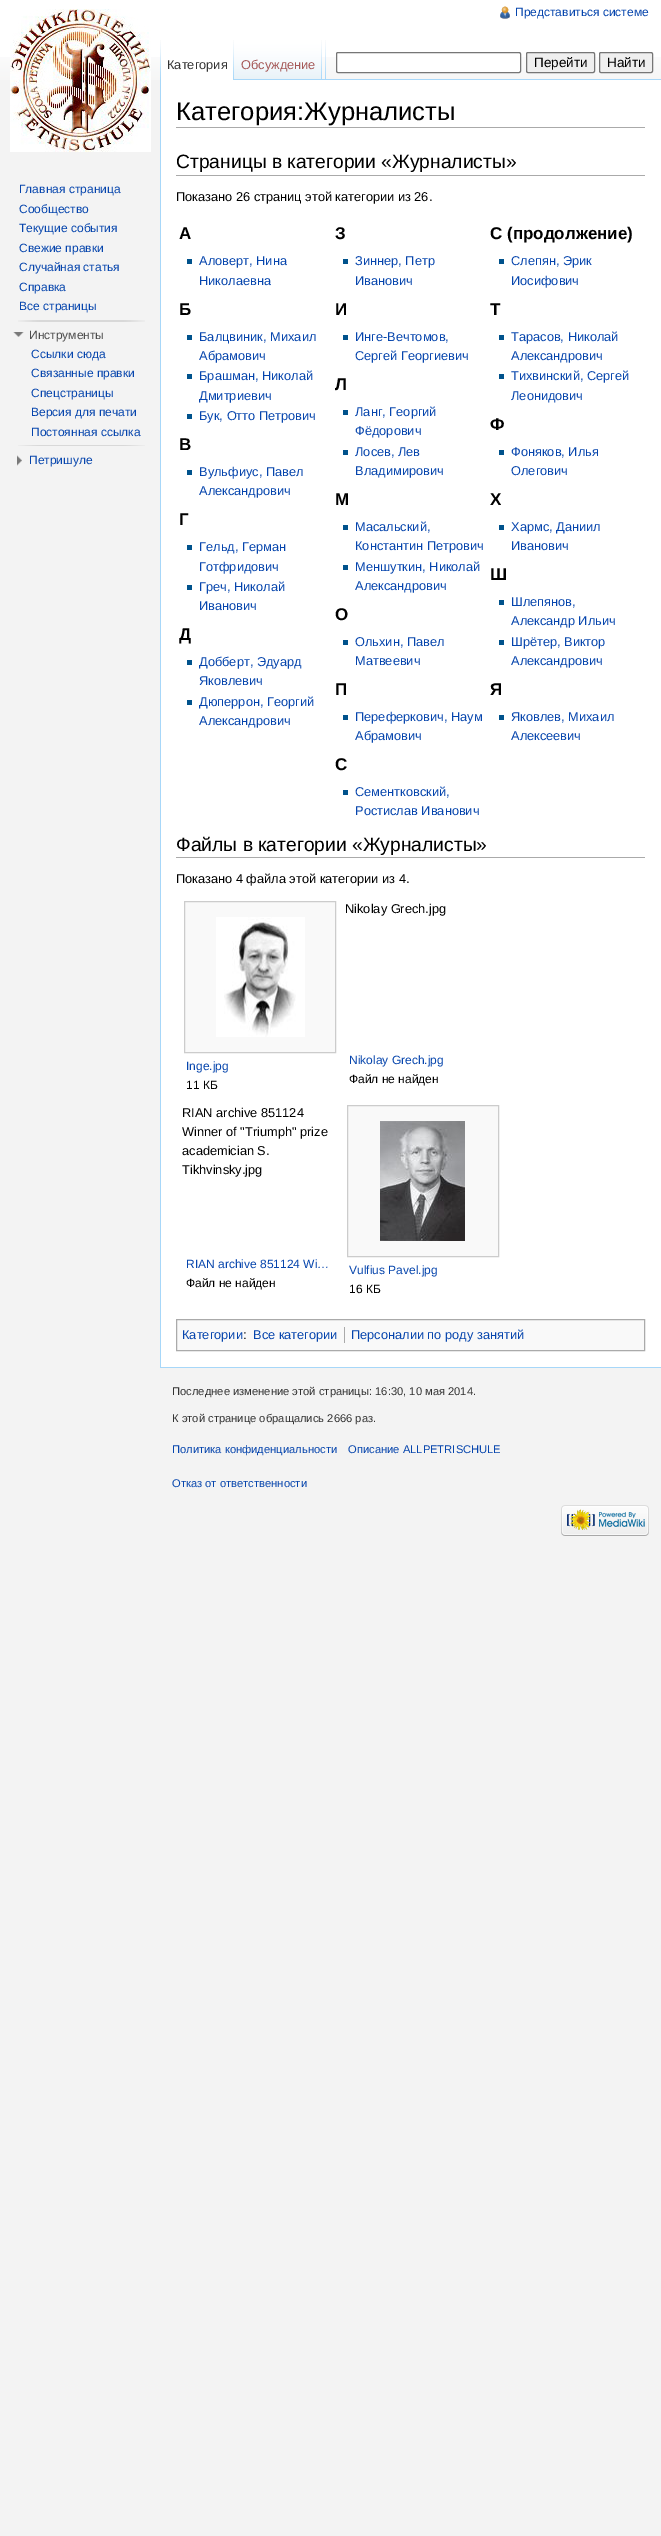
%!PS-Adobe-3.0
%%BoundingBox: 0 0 661 2536
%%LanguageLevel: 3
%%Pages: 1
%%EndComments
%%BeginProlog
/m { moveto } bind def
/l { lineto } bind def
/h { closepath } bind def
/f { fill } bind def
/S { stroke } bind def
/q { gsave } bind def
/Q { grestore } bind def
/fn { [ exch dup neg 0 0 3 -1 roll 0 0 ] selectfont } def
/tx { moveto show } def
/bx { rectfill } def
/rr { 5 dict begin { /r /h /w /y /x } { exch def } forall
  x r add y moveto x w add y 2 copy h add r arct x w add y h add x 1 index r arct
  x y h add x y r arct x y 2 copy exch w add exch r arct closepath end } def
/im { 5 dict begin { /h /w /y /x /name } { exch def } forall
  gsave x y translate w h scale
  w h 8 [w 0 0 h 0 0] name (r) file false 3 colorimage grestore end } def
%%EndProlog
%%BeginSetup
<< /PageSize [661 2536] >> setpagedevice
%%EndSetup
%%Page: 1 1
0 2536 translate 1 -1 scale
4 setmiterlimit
0.953 setgray
0 0 661 2536 bx
1 setgray
0 0 661 57 bx
(image0.raw) 0 57 661 23 im
(image1.raw) 500 6 10 13 im
/LiberationSans-Regular 12 fn
0.024 0.271 0.678 setrgbcolor
(Представиться системе) 515 16 tx
(image2.raw) 160 40 1 39 im
0.655 0.843 0.976 setrgbcolor
160 79 501 1 bx
1 setgray
161 57 72 23 bx
(image3.raw) 233 40 1 40 im
/LiberationSans-Regular 12.8 fn
0.2 setgray
(Категория) 167 69 tx
(image4.raw) 234 40 88 40 im
(image5.raw) 321 40 1 39 im
0.647 0.345 0.345 setrgbcolor
(Обсуждение) 241 69 tx
(image2.raw) 325 40 1 39 im
1 setgray
336.5 52.5 184 20 1.5 rr q f Q
0.463 setgray
S
0.937 setgray
526.5 52.5 68 20 1.5 rr q f Q
0.463 setgray
S
/LiberationSans-Regular 13.5 fn
0 setgray
(Перейти) 534 67 tx
0.937 setgray
599.5 52.5 53 20 1.5 rr q f Q
0.463 setgray
S
0 setgray
(Найти) 607 67 tx
(image6.raw) 10 9 141 143 im
/LiberationSans-Regular 12 fn
0.024 0.271 0.678 setrgbcolor
(Главная страница) 19 193 tx
(Сообщество) 19 213 tx
(Текущие события) 19 232 tx
(Свежие правки) 19 252 tx
(Случайная статья) 19 271 tx
(Справка) 19 291 tx
(Все страницы) 19 310 tx
(image7.raw) 18 320 127 2 im
(image8.raw) 13 332 11 5 im
0.302 setgray
(Инструменты) 29 339 tx
0.024 0.271 0.678 setrgbcolor
(Ссылки сюда) 31 358 tx
(Связанные правки) 31 377 tx
(Спецстраницы) 31 397 tx
(Версия для печати) 31 416 tx
(Постоянная ссылка) 31 436 tx
(image9.raw) 18 445 127 1 im
(image10.raw) 17 455 5 11 im
(Петришуле) 29 464 tx
1 setgray
161 80 500 1287 bx
0.655 0.843 0.976 setrgbcolor
160 80 1 1287 bx
0.667 setgray
176 127 469 1 bx
/LiberationSans-Regular 25.6 fn
0 setgray
(Категория:Журналисты) 176 120 tx
0.667 setgray
176 175 469 1 bx
/LiberationSans-Regular 19.25 fn
0 setgray
(Страницы в категории «Журналисты») 176 168 tx
/LiberationSans-Regular 12.8 fn
(Показано 26 страниц этой категории из 26.) 176 201 tx
/LiberationSans-Bold 17 fn
(А) 179 239 tx
0 0.322 0.549 setrgbcolor
187 259 5 5 bx
/LiberationSans-Regular 12.8 fn
0.024 0.271 0.678 setrgbcolor
(Аловерт, Нина) 199 265 tx
(Николаевна) 199 285 tx
/LiberationSans-Bold 17 fn
0 setgray
(Б) 179 315 tx
0 0.322 0.549 setrgbcolor
187 335 5 5 bx
/LiberationSans-Regular 12.8 fn
0.024 0.271 0.678 setrgbcolor
(Балцвиник, Михаил) 199 341 tx
(Абрамович) 199 360 tx
0 0.322 0.549 setrgbcolor
187 374 5 5 bx
0.024 0.271 0.678 setrgbcolor
(Брашман, Николай) 199 380 tx
(Дмитриевич) 199 400 tx
0 0.322 0.549 setrgbcolor
187 414 5 5 bx
0.024 0.271 0.678 setrgbcolor
(Бук, Отто Петрович) 199 420 tx
/LiberationSans-Bold 17 fn
0 setgray
(В) 179 450 tx
0 0.322 0.549 setrgbcolor
187 470 5 5 bx
/LiberationSans-Regular 12.8 fn
0.024 0.271 0.678 setrgbcolor
(Вульфиус, Павел) 199 476 tx
(Александрович) 199 495 tx
/LiberationSans-Bold 17 fn
0 setgray
(Г) 179 525 tx
0 0.322 0.549 setrgbcolor
187 545 5 5 bx
/LiberationSans-Regular 12.8 fn
0.024 0.271 0.678 setrgbcolor
(Гельд, Герман) 199 551 tx
(Готфридович) 199 571 tx
0 0.322 0.549 setrgbcolor
187 585 5 5 bx
0.024 0.271 0.678 setrgbcolor
(Греч, Николай) 199 591 tx
(Иванович) 199 610 tx
/LiberationSans-Bold 17 fn
0 setgray
(Д) 179 640 tx
0 0.322 0.549 setrgbcolor
187 660 5 5 bx
/LiberationSans-Regular 12.8 fn
0.024 0.271 0.678 setrgbcolor
(Добберт, Эдуард) 199 666 tx
(Яковлевич) 199 685 tx
0 0.322 0.549 setrgbcolor
187 700 5 5 bx
0.024 0.271 0.678 setrgbcolor
(Дюперрон, Георгий) 199 706 tx
(Александрович) 199 725 tx
/LiberationSans-Bold 17 fn
0 setgray
(З) 335 239 tx
0 0.322 0.549 setrgbcolor
343 259 5 5 bx
/LiberationSans-Regular 12.8 fn
0.024 0.271 0.678 setrgbcolor
(Зиннер, Петр) 355 265 tx
(Иванович) 355 285 tx
/LiberationSans-Bold 17 fn
0 setgray
(И) 335 315 tx
0 0.322 0.549 setrgbcolor
343 335 5 5 bx
/LiberationSans-Regular 12.8 fn
0.024 0.271 0.678 setrgbcolor
(Инге-Вечтомов,) 355 341 tx
(Сергей Георгиевич) 355 360 tx
/LiberationSans-Bold 17 fn
0 setgray
(Л) 335 390 tx
0 0.322 0.549 setrgbcolor
343 410 5 5 bx
/LiberationSans-Regular 12.8 fn
0.024 0.271 0.678 setrgbcolor
(Ланг, Георгий) 355 416 tx
(Фёдорович) 355 435 tx
0 0.322 0.549 setrgbcolor
343 450 5 5 bx
0.024 0.271 0.678 setrgbcolor
(Лосев, Лев) 355 456 tx
(Владимирович) 355 475 tx
/LiberationSans-Bold 17 fn
0 setgray
(М) 335 505 tx
0 0.322 0.549 setrgbcolor
343 525 5 5 bx
/LiberationSans-Regular 12.8 fn
0.024 0.271 0.678 setrgbcolor
(Масальский,) 355 531 tx
(Константин Петрович) 355 550 tx
0 0.322 0.549 setrgbcolor
343 565 5 5 bx
0.024 0.271 0.678 setrgbcolor
(Меншуткин, Николай) 355 571 tx
(Александрович) 355 590 tx
/LiberationSans-Bold 17 fn
0 setgray
(О) 335 620 tx
0 0.322 0.549 setrgbcolor
343 640 5 5 bx
/LiberationSans-Regular 12.8 fn
0.024 0.271 0.678 setrgbcolor
(Ольхин, Павел) 355 646 tx
(Матвеевич) 355 665 tx
/LiberationSans-Bold 17 fn
0 setgray
(П) 335 695 tx
0 0.322 0.549 setrgbcolor
343 715 5 5 bx
/LiberationSans-Regular 12.8 fn
0.024 0.271 0.678 setrgbcolor
(Переферкович, Наум) 355 721 tx
(Абрамович) 355 740 tx
/LiberationSans-Bold 17 fn
0 setgray
(С) 335 770 tx
0 0.322 0.549 setrgbcolor
343 790 5 5 bx
/LiberationSans-Regular 12.8 fn
0.024 0.271 0.678 setrgbcolor
(Сементковский,) 355 796 tx
(Ростислав Иванович) 355 815 tx
/LiberationSans-Bold 17 fn
0 setgray
(С \(продолжение\)) 490 239 tx
0 0.322 0.549 setrgbcolor
499 259 5 5 bx
/LiberationSans-Regular 12.8 fn
0.024 0.271 0.678 setrgbcolor
(Слепян, Эрик) 511 265 tx
(Иосифович) 511 285 tx
/LiberationSans-Bold 17 fn
0 setgray
(Т) 490 315 tx
0 0.322 0.549 setrgbcolor
499 335 5 5 bx
/LiberationSans-Regular 12.8 fn
0.024 0.271 0.678 setrgbcolor
(Тарасов, Николай) 511 341 tx
(Александрович) 511 360 tx
0 0.322 0.549 setrgbcolor
499 374 5 5 bx
0.024 0.271 0.678 setrgbcolor
(Тихвинский, Сергей) 511 380 tx
(Леонидович) 511 400 tx
/LiberationSans-Bold 17 fn
0 setgray
(Ф) 490 430 tx
0 0.322 0.549 setrgbcolor
499 450 5 5 bx
/LiberationSans-Regular 12.8 fn
0.024 0.271 0.678 setrgbcolor
(Фоняков, Илья) 511 456 tx
(Олегович) 511 475 tx
/LiberationSans-Bold 17 fn
0 setgray
(Х) 490 505 tx
0 0.322 0.549 setrgbcolor
499 525 5 5 bx
/LiberationSans-Regular 12.8 fn
0.024 0.271 0.678 setrgbcolor
(Хармс, Даниил) 511 531 tx
(Иванович) 511 550 tx
/LiberationSans-Bold 17 fn
0 setgray
(Ш) 490 580 tx
0 0.322 0.549 setrgbcolor
499 600 5 5 bx
/LiberationSans-Regular 12.8 fn
0.024 0.271 0.678 setrgbcolor
(Шлепянов,) 511 606 tx
(Александр Ильич) 511 625 tx
0 0.322 0.549 setrgbcolor
499 640 5 5 bx
0.024 0.271 0.678 setrgbcolor
(Шрётер, Виктор) 511 646 tx
(Александрович) 511 665 tx
/LiberationSans-Bold 17 fn
0 setgray
(Я) 490 695 tx
0 0.322 0.549 setrgbcolor
499 715 5 5 bx
/LiberationSans-Regular 12.8 fn
0.024 0.271 0.678 setrgbcolor
(Яковлев, Михаил) 511 721 tx
(Алексеевич) 511 740 tx
0.667 setgray
176 857 469 1 bx
/LiberationSans-Regular 19.25 fn
0 setgray
(Файлы в категории «Журналисты») 176 851 tx
/LiberationSans-Regular 12.8 fn
(Показано 4 файла этой категории из 4.) 176 883 tx
0.976 setgray
184.5 901.5 m 335.5 901.5 l 335.5 1052.5 l 184.5 1052.5 l h q f Q
0.8 setgray
S
(image11.raw) 216 917 89 120 im
/LiberationSans-Regular 12 fn
0.024 0.271 0.678 setrgbcolor
(Inge.jpg) 186 1070 tx
0 setgray
(11 КБ) 186 1089 tx
/LiberationSans-Regular 12.8 fn
(Nikolay Grech.jpg) 345 913 tx
/LiberationSans-Regular 12 fn
0.024 0.271 0.678 setrgbcolor
(Nikolay Grech.jpg) 349 1064 tx
0 setgray
(Файл не найден) 349 1083 tx
/LiberationSans-Regular 12.8 fn
(RIAN archive 851124) 182 1117 tx
(Winner of "Triumph" prize) 182 1136 tx
(academician S.) 182 1155 tx
(Tikhvinsky.jpg) 182 1174 tx
/LiberationSans-Regular 12 fn
0.024 0.271 0.678 setrgbcolor
(RIAN archive 851124 Wi…) 186 1268 tx
0 setgray
(Файл не найден) 186 1287 tx
0.976 setgray
347.5 1105.5 m 498.5 1105.5 l 498.5 1256.5 l 347.5 1256.5 l h q f Q
0.8 setgray
S
(image12.raw) 380 1121 85 120 im
0.024 0.271 0.678 setrgbcolor
(Vulfius Pavel.jpg) 349 1274 tx
0 setgray
(16 КБ) 349 1293 tx
0.976 setgray
176.5 1319.5 m 644.5 1319.5 l 644.5 1350.5 l 176.5 1350.5 l h q f Q
0.667 setgray
S
/LiberationSans-Regular 12.8 fn
0.024 0.271 0.678 setrgbcolor
(Категории) 182 1339 tx
0 setgray
(:) 243 1339 tx
0.024 0.271 0.678 setrgbcolor
(Все категории) 253 1339 tx
0.667 setgray
344 1327 1 16 bx
0.024 0.271 0.678 setrgbcolor
(Персоналии по роду занятий) 351 1339 tx
0.655 0.843 0.976 setrgbcolor
160 1367 501 1 bx
/LiberationSans-Regular 11.2 fn
0.2 setgray
(Последнее изменение этой страницы: 16:30, 10 мая 2014.) 172 1395 tx
(К этой странице обращались 2666 раз.) 172 1422 tx
0.024 0.271 0.678 setrgbcolor
(Политика конфиденциальности) 172 1453 tx
(Описание ALLPETRISCHULE) 348 1453 tx
(Отказ от ответственности) 172 1487 tx
(image13.raw) 561 1505 88 31 im
showpage
%%EOF
